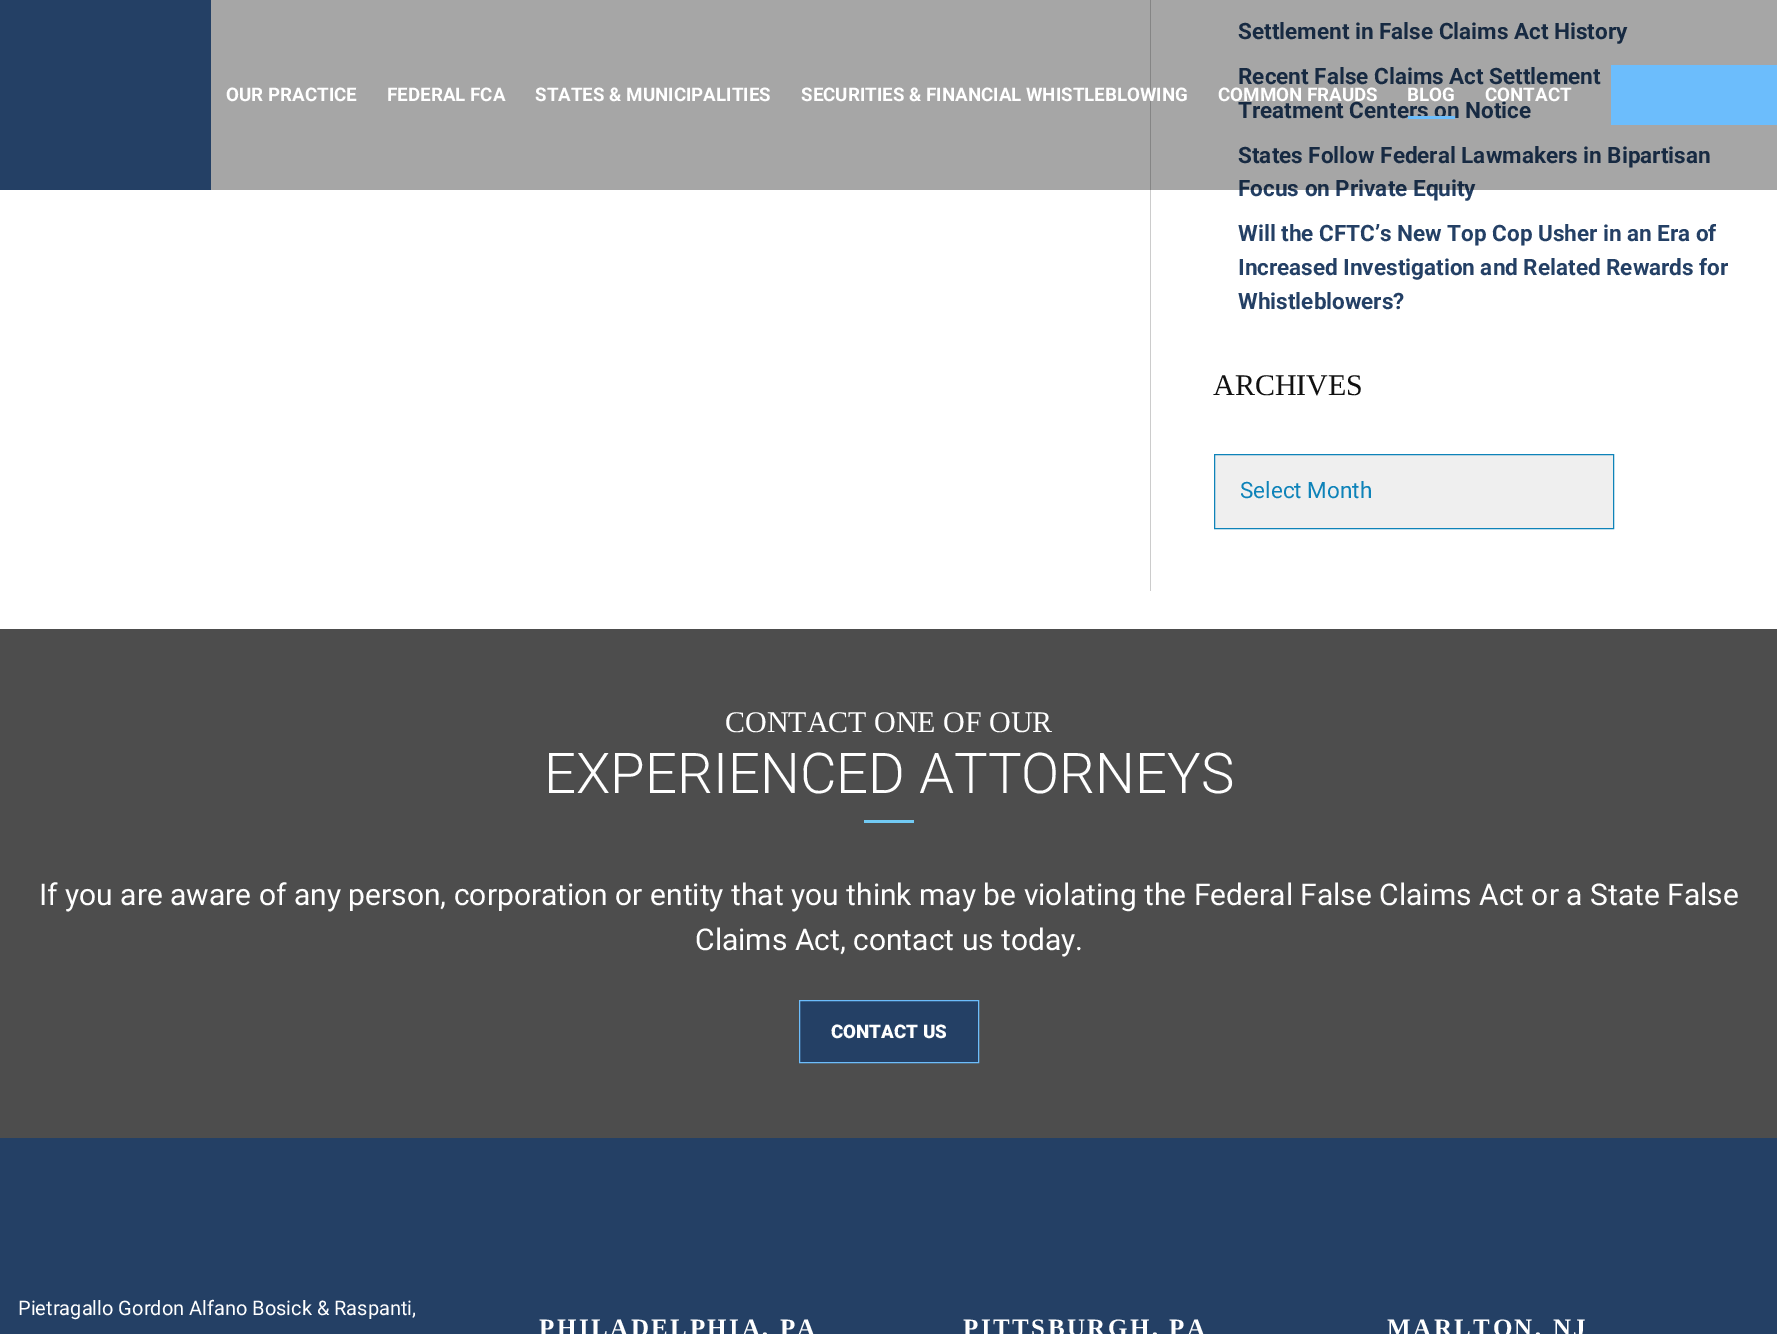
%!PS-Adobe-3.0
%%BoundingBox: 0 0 1777 1334
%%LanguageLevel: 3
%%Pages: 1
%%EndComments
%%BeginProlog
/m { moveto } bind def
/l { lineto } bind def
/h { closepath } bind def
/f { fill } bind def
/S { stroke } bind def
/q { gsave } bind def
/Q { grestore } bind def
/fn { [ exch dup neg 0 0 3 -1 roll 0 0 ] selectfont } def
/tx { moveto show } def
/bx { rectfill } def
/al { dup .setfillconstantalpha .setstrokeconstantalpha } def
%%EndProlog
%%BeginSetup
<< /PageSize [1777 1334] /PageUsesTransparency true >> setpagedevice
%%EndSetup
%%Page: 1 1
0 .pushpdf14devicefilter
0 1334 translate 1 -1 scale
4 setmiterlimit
1 setgray
0 0 1777 1334 bx
0.8 setgray
1150 0 1 591 bx
/Roboto-Bold 22.5 fn
0.141 0.251 0.396 setrgbcolor
(Settlement in False Claims Act History) 1238 39 tx
(Recent False Claims Act Settlement) 1238 84 tx
(Treatment Centers on Notice) 1238 118 tx
(States Follow Federal Lawmakers in Bipartisan) 1238 163 tx
(Focus on Private Equity) 1238 196 tx
(Will the CFTC’s New Top Cop Usher in an Era of) 1238 241 tx
(Increased Investigation and Related Rewards for) 1238 275 tx
(Whistleblowers?) 1238 309 tx
/LiberationSerif-Regular 30 fn
0.067 setgray
(ARCHIVES) 1213 395 tx
0.937 setgray
1214.5 454.5 m 1613.5 454.5 l 1613.5 528.5 l 1214.5 528.5 l h q f Q
0.055 0.514 0.725 setrgbcolor
S
/Roboto-Regular 22.5 fn
(Select Month) 1240 498 tx
0.35 al
0 setgray
211 0 1566 190 bx
1 al
0.141 0.251 0.396 setrgbcolor
0 0 211 190 bx
/Roboto-Bold 18.75 fn
1 setgray
(OUR PRACTICE) 226 101 tx
(FEDERAL FCA) 387 101 tx
(STATES & MUNICIPALITIES) 535 101 tx
(SECURITIES & FINANCIAL WHISTLEBLOWING) 801 101 tx
(COMMON FRAUDS) 1218 101 tx
(BLOG) 1407 101 tx
0.424 0.741 0.988 setrgbcolor
1408 116 47 3 bx
1 setgray
(CONTACT) 1485 101 tx
0.424 0.741 0.988 setrgbcolor
1611 65 166 60 bx
0.302 setgray
0 629 1777 509 bx
/LiberationSerif-Regular 30 fn
1 setgray
(CONTACT ONE OF OUR) 725 732 tx
/Roboto-Light 56.25 fn
(EXPERIENCED ATTORNEYS) 544 793 tx
0.443 0.792 0.957 setrgbcolor
864 820 50 3 bx
/Roboto-Regular 30 fn
1 setgray
(If you are aware of any person, corporation or entity that you think may be violating the Federal False Claims Act or a State False) 39 905 tx
(Claims Act, contact us today.) 695 950 tx
0.141 0.251 0.396 setrgbcolor
799.5 1000.5 m 978.5 1000.5 l 978.5 1062.5 l 799.5 1062.5 l h q f Q
0.424 0.741 0.988 setrgbcolor
S
/Roboto-Black 18.75 fn
1 setgray
(CONTACT US) 831 1038 tx
0.141 0.251 0.396 setrgbcolor
0 1138 1777 196 bx
/Roboto-Regular 20 fn
1 setgray
(Pietragallo Gordon Alfano Bosick & Raspanti,) 18 1315 tx
/LiberationSerif-Bold 25 fn
539 1336 m 2.5 0 (PHILADELPHIA, PA) ashow
963 1336 m 2.5 0 (PITTSBURGH, PA) ashow
1387 1336 m 2.5 0 (MARLTON, NJ) ashow
.poppdf14devicefilter showpage
%%EOF
